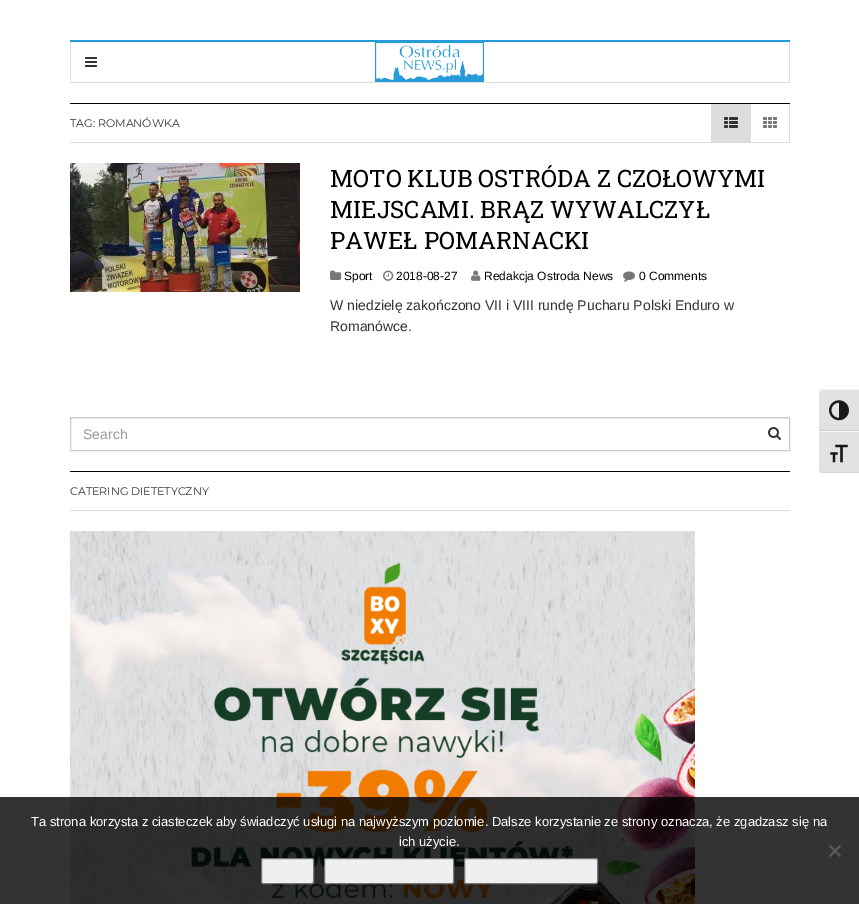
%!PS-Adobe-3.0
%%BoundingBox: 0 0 859 904
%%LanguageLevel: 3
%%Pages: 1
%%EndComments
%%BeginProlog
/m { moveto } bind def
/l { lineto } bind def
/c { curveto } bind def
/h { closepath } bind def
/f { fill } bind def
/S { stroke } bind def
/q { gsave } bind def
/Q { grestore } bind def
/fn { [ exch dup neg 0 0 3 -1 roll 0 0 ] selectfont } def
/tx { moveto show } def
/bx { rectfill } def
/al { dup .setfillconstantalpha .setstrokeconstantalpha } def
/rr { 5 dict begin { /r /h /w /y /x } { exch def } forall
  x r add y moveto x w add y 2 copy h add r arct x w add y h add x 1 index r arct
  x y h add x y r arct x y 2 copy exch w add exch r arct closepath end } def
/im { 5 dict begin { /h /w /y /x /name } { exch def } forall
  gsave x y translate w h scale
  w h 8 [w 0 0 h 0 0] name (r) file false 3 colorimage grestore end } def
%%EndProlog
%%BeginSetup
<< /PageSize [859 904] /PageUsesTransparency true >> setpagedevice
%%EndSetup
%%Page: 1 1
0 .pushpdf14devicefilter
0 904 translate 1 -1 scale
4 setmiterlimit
1 setgray
0 0 859 904 bx
0.153 0.608 0.843 setrgbcolor
70 40 720 2 bx
0.867 setgray
789 42 1 41 bx
70 82 720 1 bx
70 42 1 41 bx
(image0.raw) 85 57 12 10 im
(image1.raw) 375 42 109 40 im
0 setgray
70 103 720 1 bx
0.867 setgray
70 142 720 1 bx
/Montserrat-Regular 11 fn
0.2 setgray
(TAG: ROMANÓWKA) 70 127 tx
0.867 setgray
711 104 1 39 bx
712 104 39 38 bx
(image2.raw) 724 117 14 11 im
789 104 1 39 bx
(image3.raw) 763 117 14 11 im
(image4.raw) 70 163 230 129 im
/RobotoSlab-Regular 24 fn
0 setgray
(MOTO KLUB OSTRÓDA Z CZOŁOWYMI) 330 187 tx
(MIEJSCAMI. BRĄZ WYWALCZYŁ) 330 218 tx
(PAWEŁ POMARNACKI) 330 249 tx
(image5.raw) 330 270 12 10 im
/LiberationSans-Regular 12 fn
(Sport) 344 280 tx
(image6.raw) 383 270 11 11 im
(2018-08-27) 396 280 tx
(image7.raw) 471 270 10 11 im
(Redakcja Ostroda News) 484 280 tx
(image8.raw) 623 271 12 11 im
(0 Comments) 639 280 tx
/LiberationSans-Regular 14 fn
0.2 setgray
(W niedzielę zakończono VII i VIII rundę Pucharu Polski Enduro w) 330 310 tx
(Romanówce.) 330 331 tx
0.925 setgray
71 418 718 1 bx
0.8 setgray
70.5 417.5 719 33 rectstroke
0.6 setgray
(Search) 83 439 tx
(image9.raw) 768 427 13 13 im
0 setgray
70 471 720 1 bx
0.867 setgray
70 510 720 1 bx
/Montserrat-Regular 11 fn
0.2 setgray
(CATERING DIETETYCZNY) 70 495 tx
(image10.raw) 70 531 625 373 im
0.886 setgray
823 389 m 859 389 l 859 431 l 819 431 l 819 393 l 819 391 821 389 823 389 c h f
0.961 setgray
823 390 m 859 390 l 859 389 l 823 389 l 821 389 819 391 819 393 c 819 391 821 390 823 390 c h f
0.824 setgray
819 430 40 1 bx
(image11.raw) 829 400 20 21 im
0.886 setgray
819 431 m 859 431 l 859 473 l 823 473 l 821 473 819 471 819 469 c h f
0.961 setgray
819 431 40 1 bx
0.824 setgray
859 473 m 859 472 l 823 472 l 821 472 819 471 819 469 c 819 471 821 473 823 473 c h f
(image12.raw) 830 444 18 19 im
0.8 al
0 setgray
0 797 859 107 bx
/LiberationSans-Regular 13 fn
1 al
1 setgray
(Ta strona korzysta z ciasteczek aby świadczyć usługi na najwyższym poziomie. Dalsze korzystanie ze strony oznacza, że zgadzasz się na) 31 826 tx
(ich użycie.) 399 846 tx
0.353 setgray
839.5 845 m 841 846.5 l 830.5 857 l 829 855.5 l h f
829 846.5 m 830.5 845 l 841 855.5 l 839.5 857 l h f
0.937 setgray
261.5 858.5 52 25 1.5 rr q f Q
0.463 setgray
S
0.937 setgray
324.5 858.5 129 25 1.5 rr q f Q
0.463 setgray
S
0.937 setgray
464.5 858.5 133 25 1.5 rr q f Q
0.463 setgray
S
.poppdf14devicefilter showpage
%%EOF
